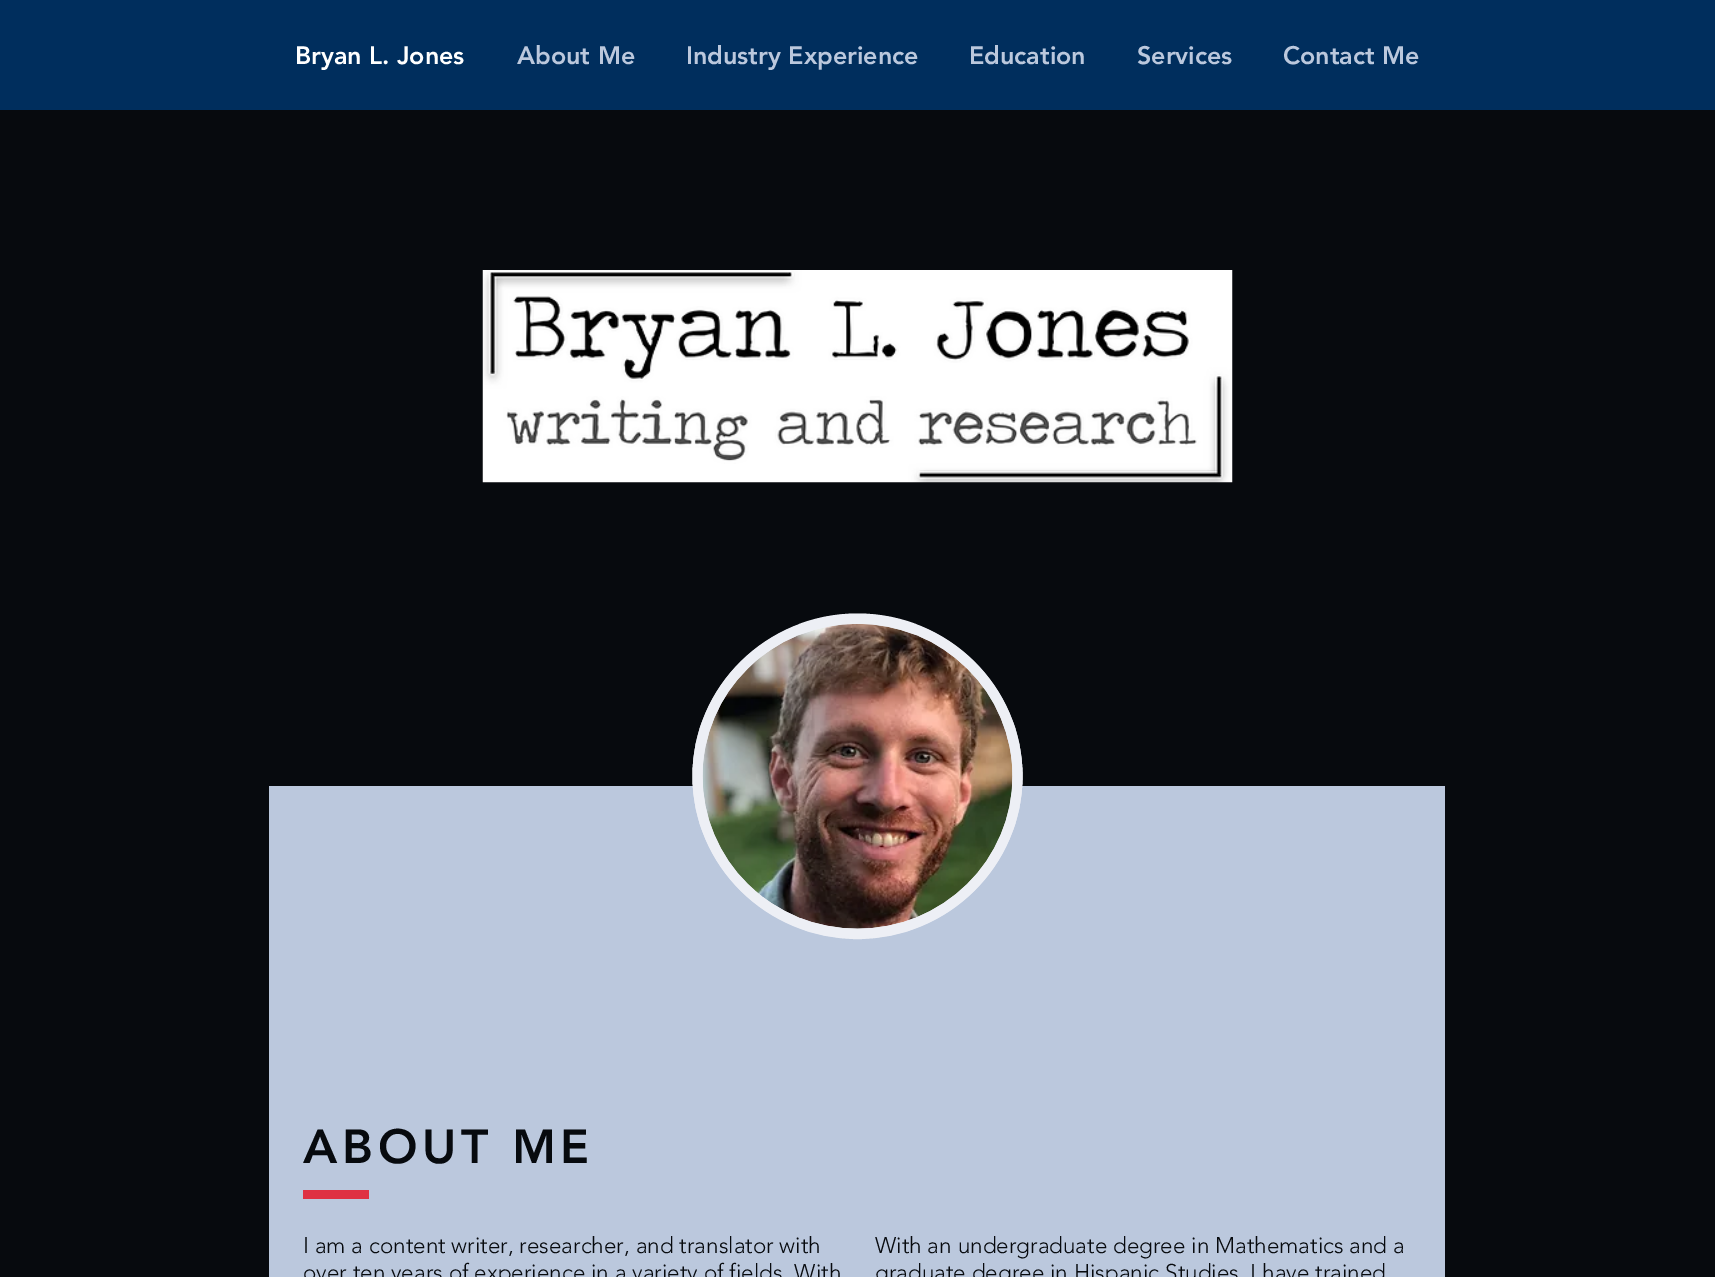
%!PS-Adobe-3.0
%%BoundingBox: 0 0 1715 1277
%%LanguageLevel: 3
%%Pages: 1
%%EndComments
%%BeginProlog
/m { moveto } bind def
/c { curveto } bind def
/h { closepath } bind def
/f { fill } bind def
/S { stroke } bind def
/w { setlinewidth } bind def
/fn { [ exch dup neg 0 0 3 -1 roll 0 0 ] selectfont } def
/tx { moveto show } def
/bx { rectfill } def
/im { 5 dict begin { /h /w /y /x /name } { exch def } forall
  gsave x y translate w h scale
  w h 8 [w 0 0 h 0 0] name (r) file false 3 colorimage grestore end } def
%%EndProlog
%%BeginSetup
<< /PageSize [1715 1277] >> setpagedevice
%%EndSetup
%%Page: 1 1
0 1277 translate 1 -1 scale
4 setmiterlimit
0.027 0.039 0.055 setrgbcolor
0 0 1715 1277 bx
0 0.18 0.365 setrgbcolor
0 0 1715 110 bx
/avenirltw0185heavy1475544-Black 25 fn
1 setgray
(Bryan L. Jones) 295 64 tx
0.733 0.784 0.867 setrgbcolor
(About Me) 517 64 tx
(Industry Experience) 686 64 tx
(Education) 969 64 tx
(Services) 1137 64 tx
(Contact Me) 1283 64 tx
(image0.raw) 482 270 751 213 im
269 786 1176 491 bx
0.929 0.937 0.961 setrgbcolor
857.5 613.5 m 948.5 613.5 1022.5 686.5 1022.5 776 c 1022.5 865.5 948.5 938.5 857.5 938.5 c 766.5 938.5 692.5 865.5 692.5 776 c 692.5 686.5 766.5 613.5 857.5 613.5 c h f
10 w
857.5 619 m 946 619 1017.5 689.5 1017.5 776 c 1017.5 863 946 934 857.5 934 c 769 934 697.5 863 697.5 776 c 697.5 689.5 769 619 857.5 619 c h S
(image1.raw) 702 624 311 305 im
/avenirltw0185heavy1475544-Black 47.5 fn
0.027 0.039 0.055 setrgbcolor
303 1163 m 4.75 0 (ABOUT ME) ashow
0.875 0.192 0.263 setrgbcolor
303 1190 66 9 bx
/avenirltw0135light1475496-Light 22.5 fn
0.027 0.039 0.055 setrgbcolor
(I am a content writer, researcher, and translator with) 303 1253 tx
(over ten years of experience in a variety of fields. With) 303 1280 tx
(With an undergraduate degree in Mathematics and a) 875 1253 tx
(graduate degree in Hispanic Studies, I have trained) 875 1280 tx
showpage
%%EOF
